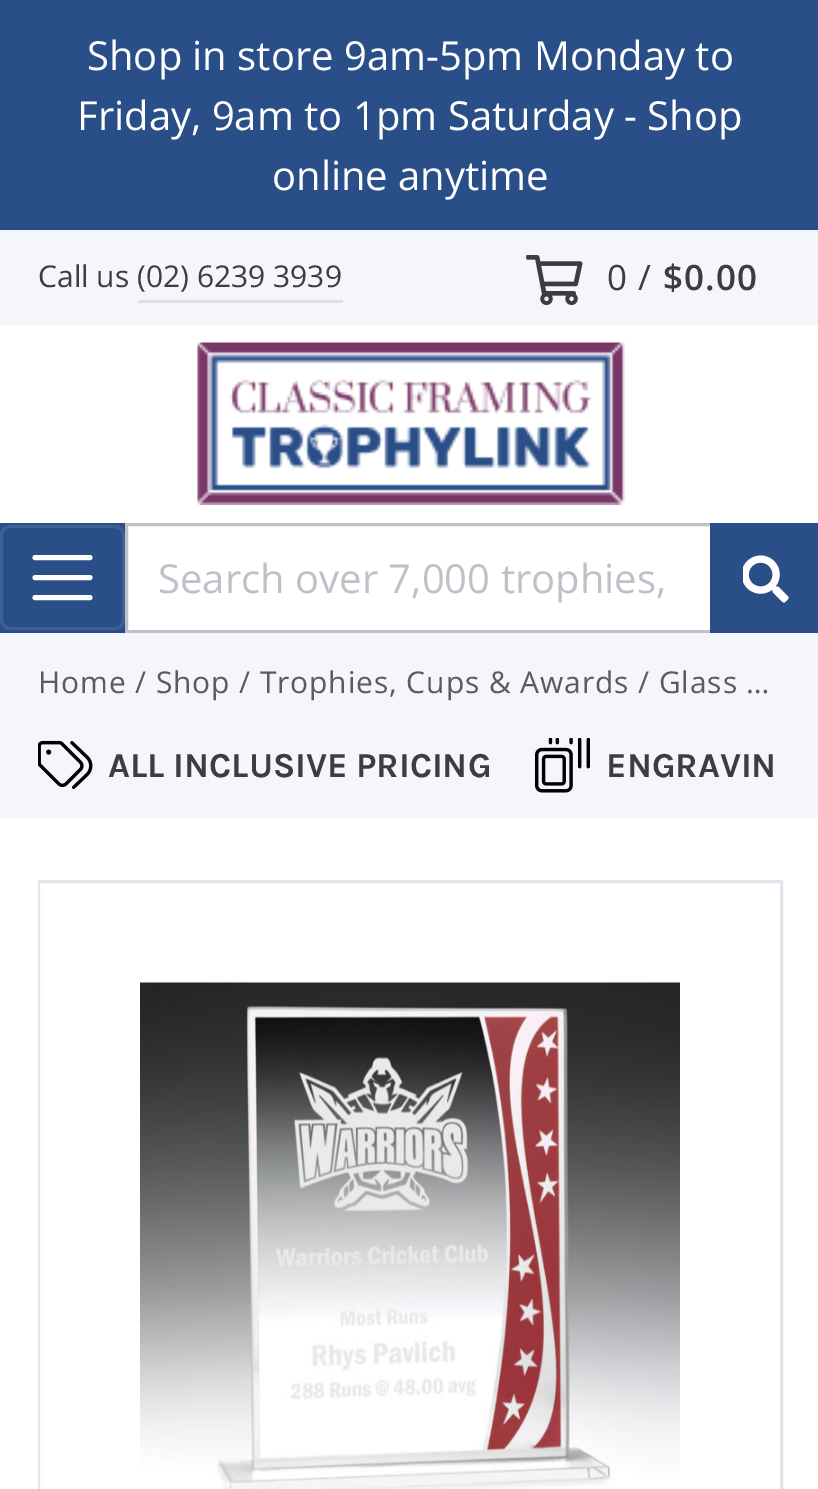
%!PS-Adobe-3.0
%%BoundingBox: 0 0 818 1489
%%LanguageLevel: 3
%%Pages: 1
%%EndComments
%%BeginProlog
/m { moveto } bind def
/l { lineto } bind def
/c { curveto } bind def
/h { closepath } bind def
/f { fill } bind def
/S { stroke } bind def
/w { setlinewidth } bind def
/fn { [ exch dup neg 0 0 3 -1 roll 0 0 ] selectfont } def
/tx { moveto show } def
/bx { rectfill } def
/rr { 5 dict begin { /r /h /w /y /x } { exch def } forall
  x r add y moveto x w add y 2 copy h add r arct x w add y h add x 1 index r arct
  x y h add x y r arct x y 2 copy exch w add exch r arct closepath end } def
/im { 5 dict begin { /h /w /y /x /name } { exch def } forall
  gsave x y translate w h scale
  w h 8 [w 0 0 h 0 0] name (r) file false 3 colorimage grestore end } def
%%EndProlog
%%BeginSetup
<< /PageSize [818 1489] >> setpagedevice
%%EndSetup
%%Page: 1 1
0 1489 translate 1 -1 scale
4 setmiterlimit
1 setgray
0 0 818 1489 bx
0.165 0.306 0.533 setrgbcolor
0 0 818 230 bx
/OpenSans-Regular 40 fn
1 setgray
(Shop in store 9am-5pm Monday to) 87 70 tx
(Friday, 9am to 1pm Saturday - Shop) 77 130 tx
(online anytime) 272 190 tx
0.961 0.961 0.988 setrgbcolor
0 230 818 95 bx
/OpenSans-Regular 30 fn
0.235 0.235 0.263 setrgbcolor
(Call us \(02\) 6239 3939) 38 287 tx
0.871 0.871 0.894 setrgbcolor
138 300 205 3 bx
(image0.raw) 526 255 57 50 im
/OpenSans-Regular 35 fn
0.235 0.235 0.263 setrgbcolor
607 290 m 1 0 (0 /) ashow
/OpenSans-SemiBold 35 fn
663 290 m 1 0 ($0.00) ashow
(image1.raw) 197 342 428 163 im
0.165 0.306 0.533 setrgbcolor
0 523 818 110 bx
0.247 0.376 0.58 setrgbcolor
3 w
1.5 526.5 122 102 8.5 rr S
1 setgray
5 w
1 setlinecap
35 557.5 m 90 557.5 l 35 577.5 m 90 577.5 l 35 597.5 m 90 597.5 l S
128 526 582 104 bx
0.749 0.753 0.784 setrgbcolor
3 w
0 setlinecap
126.5 524.5 590 107 rectstroke
/OpenSans-Regular 40 fn
(Search over 7,000 trophies,) 158 593 tx
0.165 0.306 0.533 setrgbcolor
710 523 m 810 523 l 815.5 523 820 527.5 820 533 c 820 623 l 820 628.5 815.5 633 810 633 c 710 633 l h f
(image2.raw) 743 555 46 48 im
0.961 0.961 0.988 setrgbcolor
0 633 818 185 bx
/OpenSans-Regular 30 fn
0.353 0.357 0.376 setrgbcolor
38 693 m 0.9 0 (Home) ashow
135 693 m 0.9 0 (/ Shop) ashow
239 693 m 0.9 0 (/ Trophies, Cups & Awards) ashow
638 693 m 0.9 0 (/ Glass …) ashow
(image3.raw) 38 740 55 49 im
/Karla-Bold 35 fn
0.235 0.235 0.263 setrgbcolor
(ALL INCLUSIVE PRICING) 108 777 tx
(image4.raw) 535 738 55 55 im
(ENGRAVIN) 606 777 tx
0.89 0.89 0.922 setrgbcolor
39.5 881.5 742 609 rectstroke
1 setgray
40 883 1 606 bx
(image5.raw) 140 982 540 507 im
showpage
%%EOF
